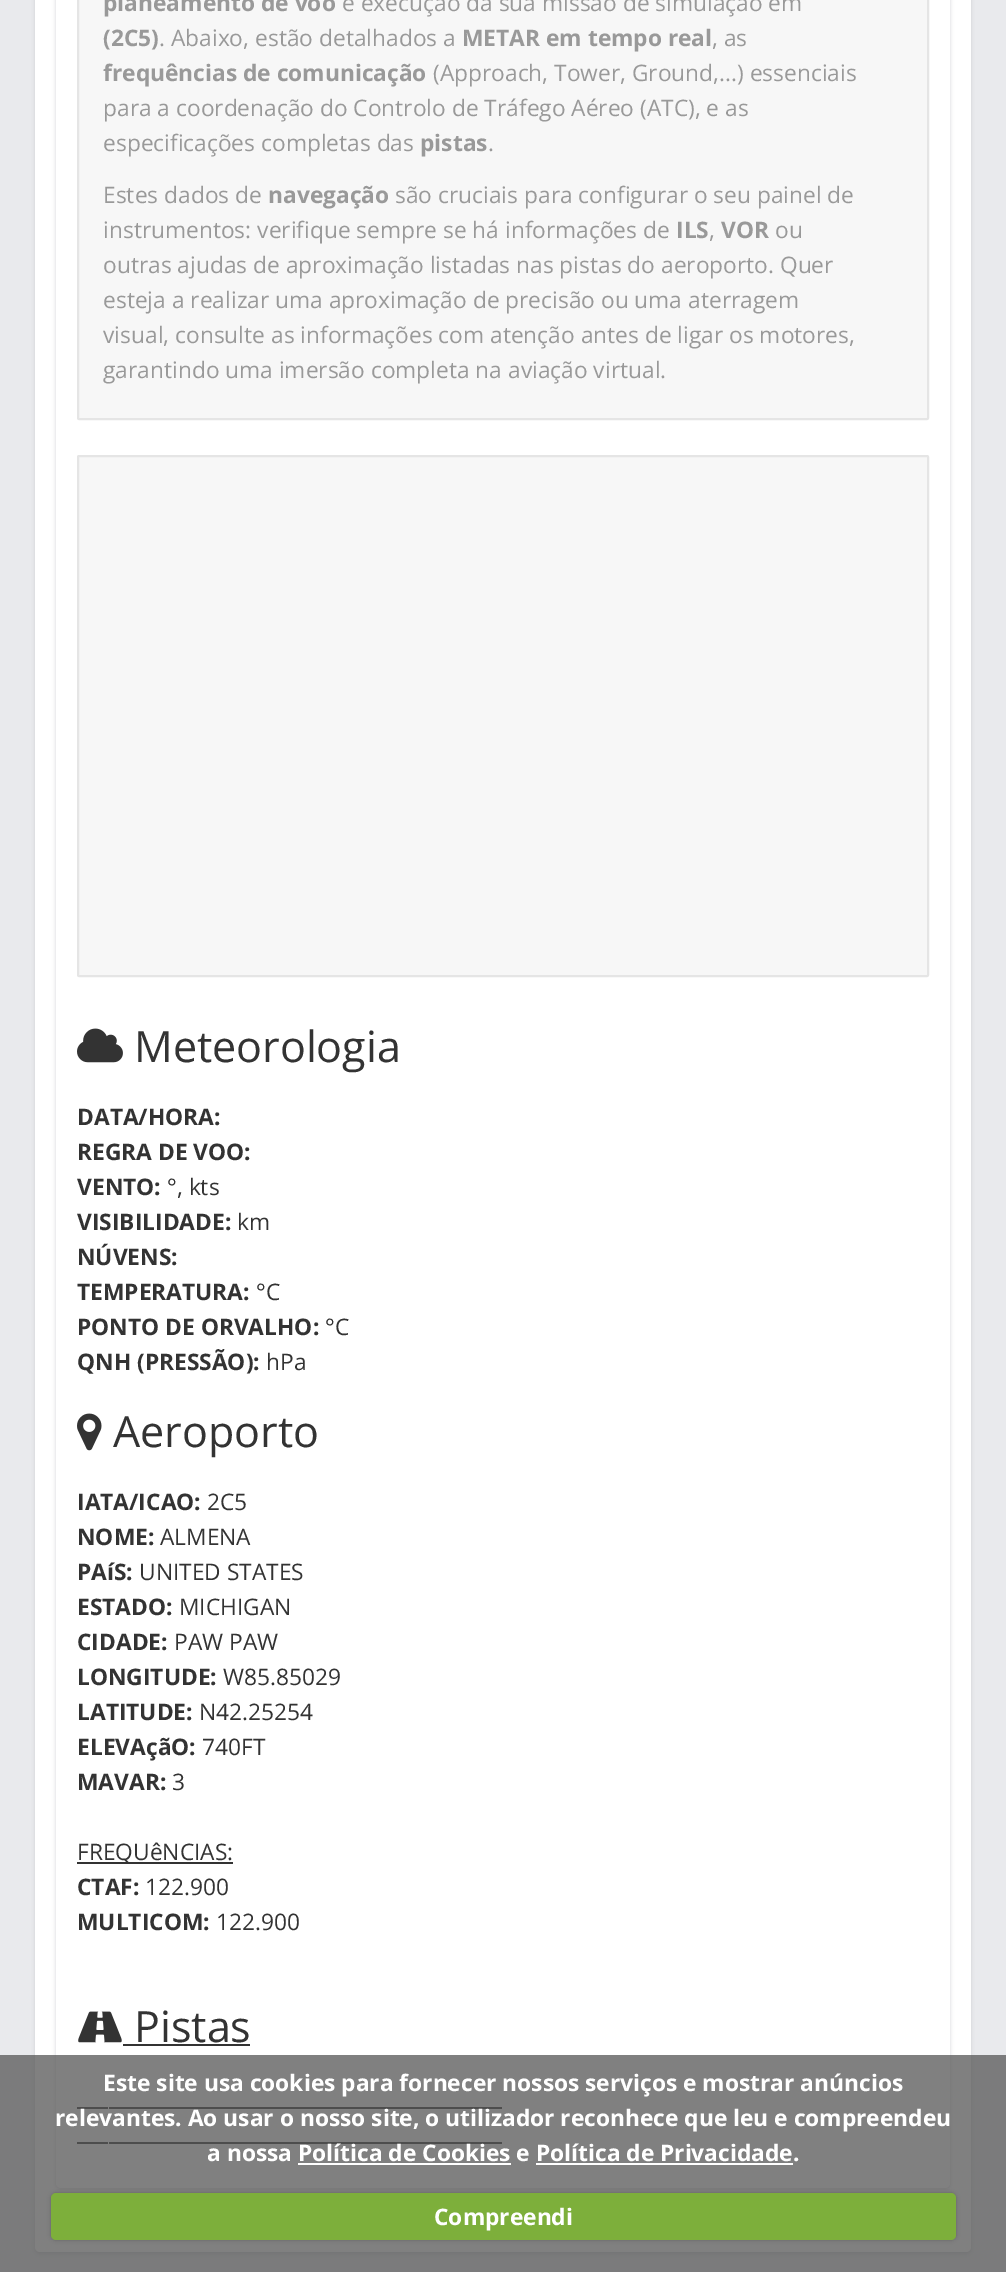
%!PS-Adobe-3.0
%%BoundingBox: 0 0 1006 2272
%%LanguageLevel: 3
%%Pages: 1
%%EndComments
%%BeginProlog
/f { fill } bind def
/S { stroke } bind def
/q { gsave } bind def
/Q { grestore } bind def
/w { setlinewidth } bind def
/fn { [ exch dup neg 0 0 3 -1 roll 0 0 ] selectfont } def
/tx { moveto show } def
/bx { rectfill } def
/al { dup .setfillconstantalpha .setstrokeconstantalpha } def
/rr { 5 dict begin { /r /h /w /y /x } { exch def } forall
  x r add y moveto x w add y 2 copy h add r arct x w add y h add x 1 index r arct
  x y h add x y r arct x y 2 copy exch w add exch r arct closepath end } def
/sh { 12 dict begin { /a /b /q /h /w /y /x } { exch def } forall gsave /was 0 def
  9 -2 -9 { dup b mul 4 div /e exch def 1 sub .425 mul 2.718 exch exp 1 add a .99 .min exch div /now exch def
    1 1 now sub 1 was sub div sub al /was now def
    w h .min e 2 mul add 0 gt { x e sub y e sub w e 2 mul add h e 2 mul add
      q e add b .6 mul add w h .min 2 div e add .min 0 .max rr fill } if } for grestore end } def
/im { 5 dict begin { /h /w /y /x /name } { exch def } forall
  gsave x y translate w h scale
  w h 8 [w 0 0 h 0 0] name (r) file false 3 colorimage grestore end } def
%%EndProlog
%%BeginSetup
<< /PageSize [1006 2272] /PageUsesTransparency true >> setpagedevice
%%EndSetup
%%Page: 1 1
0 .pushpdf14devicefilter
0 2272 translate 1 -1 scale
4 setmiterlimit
0.914 0.918 0.929 setrgbcolor
0 0 1006 2272 bx
0.769 0.773 0.788 setrgbcolor
35 -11 936 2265 5 2 0.75 sh
1 setgray
35 -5 936 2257 5 rr f
0.769 0.773 0.788 setrgbcolor
56 -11 894 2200 5 2 0.75 sh
1 setgray
56 -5 894 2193 5 rr f
0.969 setgray
78 -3 850 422 1 rr q f Q
0.898 setgray
2 w
S
/OpenSans-Bold 22.75 fn
0.6 setgray
(planeamento de voo) 103 11 tx
/OpenSans-Regular 22.75 fn
(e execução da sua missão de simulação em) 342 11 tx
/OpenSans-Bold 22.75 fn
(\(2C5\)) 103 46 tx
/OpenSans-Regular 22.75 fn
(. Abaixo, estão detalhados a) 159 46 tx
/OpenSans-Bold 22.75 fn
(METAR em tempo real) 462 46 tx
/OpenSans-Regular 22.75 fn
(, as) 712 46 tx
/OpenSans-Bold 22.75 fn
(frequências de comunicação) 103 81 tx
/OpenSans-Regular 22.75 fn
(\(Approach, Tower, Ground,...\) essenciais) 433 81 tx
(para a coordenação do Controlo de Tráfego Aéreo \(ATC\), e as) 103 116 tx
(especificações completas das) 103 151 tx
/OpenSans-Bold 22.75 fn
(pistas) 420 151 tx
/OpenSans-Regular 22.75 fn
(.) 488 151 tx
(Estes dados de) 103 203 tx
/OpenSans-Bold 22.75 fn
(navegação) 268 203 tx
/OpenSans-Regular 22.75 fn
(são cruciais para configurar o seu painel de) 395 203 tx
(instrumentos: verifique sempre se há informações de) 103 238 tx
/OpenSans-Bold 22.75 fn
(ILS) 676 238 tx
/OpenSans-Regular 22.75 fn
(,) 709 238 tx
/OpenSans-Bold 22.75 fn
(VOR) 721 238 tx
/OpenSans-Regular 22.75 fn
(ou) 775 238 tx
(outras ajudas de aproximação listadas nas pistas do aeroporto. Quer) 103 273 tx
(esteja a realizar uma aproximação de precisão ou uma aterragem) 103 308 tx
(visual, consulte as informações com atenção antes de ligar os motores,) 103 343 tx
(garantindo uma imersão completa na aviação virtual.) 103 378 tx
0.969 setgray
78 456 850 520 1 rr q f Q
0.898 setgray
S
(image0.raw) 77 1028 46 35 im
/OpenSans-Regular 43 fn
0.2 setgray
(Meteorologia) 134 1062 tx
/OpenSans-Bold 22.75 fn
(DATA/HORA:) 77 1125 tx
(REGRA DE VOO:) 77 1160 tx
(VENTO:) 77 1195 tx
/OpenSans-Regular 22.75 fn
(°, kts) 167 1195 tx
/OpenSans-Bold 22.75 fn
(VISIBILIDADE:) 77 1230 tx
/OpenSans-Regular 22.75 fn
(km) 237 1230 tx
/OpenSans-Bold 22.75 fn
(NÚVENS:) 77 1265 tx
(TEMPERATURA:) 77 1300 tx
/OpenSans-Regular 22.75 fn
(°C) 256 1300 tx
/OpenSans-Bold 22.75 fn
(PONTO DE ORVALHO:) 77 1335 tx
/OpenSans-Regular 22.75 fn
(°C) 325 1335 tx
/OpenSans-Bold 22.75 fn
(QNH \(PRESSÃO\):) 77 1370 tx
/OpenSans-Regular 22.75 fn
(hPa) 266 1370 tx
(image1.raw) 77 1413 25 38 im
/OpenSans-Regular 43 fn
(Aeroporto) 113 1447 tx
/OpenSans-Bold 22.75 fn
(IATA/ICAO:) 77 1510 tx
/OpenSans-Regular 22.75 fn
(2C5) 207 1510 tx
/OpenSans-Bold 22.75 fn
(NOME:) 77 1545 tx
/OpenSans-Regular 22.75 fn
(ALMENA) 160 1545 tx
/OpenSans-Bold 22.75 fn
(PAíS:) 77 1580 tx
/OpenSans-Regular 22.75 fn
(UNITED STATES) 139 1580 tx
/OpenSans-Bold 22.75 fn
(ESTADO:) 77 1615 tx
/OpenSans-Regular 22.75 fn
(MICHIGAN) 179 1615 tx
/OpenSans-Bold 22.75 fn
(CIDADE:) 77 1650 tx
/OpenSans-Regular 22.75 fn
(PAW PAW) 174 1650 tx
/OpenSans-Bold 22.75 fn
(LONGITUDE:) 77 1685 tx
/OpenSans-Regular 22.75 fn
(W85.85029) 223 1685 tx
/OpenSans-Bold 22.75 fn
(LATITUDE:) 77 1720 tx
/OpenSans-Regular 22.75 fn
(N42.25254) 199 1720 tx
/OpenSans-Bold 22.75 fn
(ELEVAçãO:) 77 1755 tx
/OpenSans-Regular 22.75 fn
(740FT) 202 1755 tx
/OpenSans-Bold 22.75 fn
(MAVAR:) 77 1790 tx
/OpenSans-Regular 22.75 fn
(3) 172 1790 tx
77 1862 156 2 bx
(FREQUêNCIAS:) 77 1860 tx
/OpenSans-Bold 22.75 fn
(CTAF:) 77 1895 tx
/OpenSans-Regular 22.75 fn
(122.900) 145 1895 tx
/OpenSans-Bold 22.75 fn
(MULTICOM:) 77 1930 tx
/OpenSans-Regular 22.75 fn
(122.900) 216 1930 tx
(image2.raw) 78 2011 44 32 im
/OpenSans-Regular 43 fn
(Pistas) 134 2042 tx
123 2044 127 2 bx
77 2107 31 2 bx
109 2107 393 2 bx
77 2142 31 2 bx
109 2142 393 2 bx
0.75 al
0.337 setgray
0 2055 1006 217 bx
/OpenSans-Bold 22.75 fn
1 al
1 setgray
(Este site usa cookies para fornecer nossos serviços e mostrar anúncios) 103 2091 tx
(relevantes. Ao usar o nosso site, o utilizador reconhece que leu e compreendeu) 55 2126 tx
(a nossa Política de Cookies e Política de Privacidade.) 207 2161 tx
298 2163 213 2 bx
536 2163 257 2 bx
0 setgray
51 2193 905 47 5 2 0.25 sh
0.49 0.686 0.231 setrgbcolor
51 2193 905 47 5 rr f
1 setgray
(Compreendi) 434 2225 tx
.poppdf14devicefilter showpage
%%EOF
